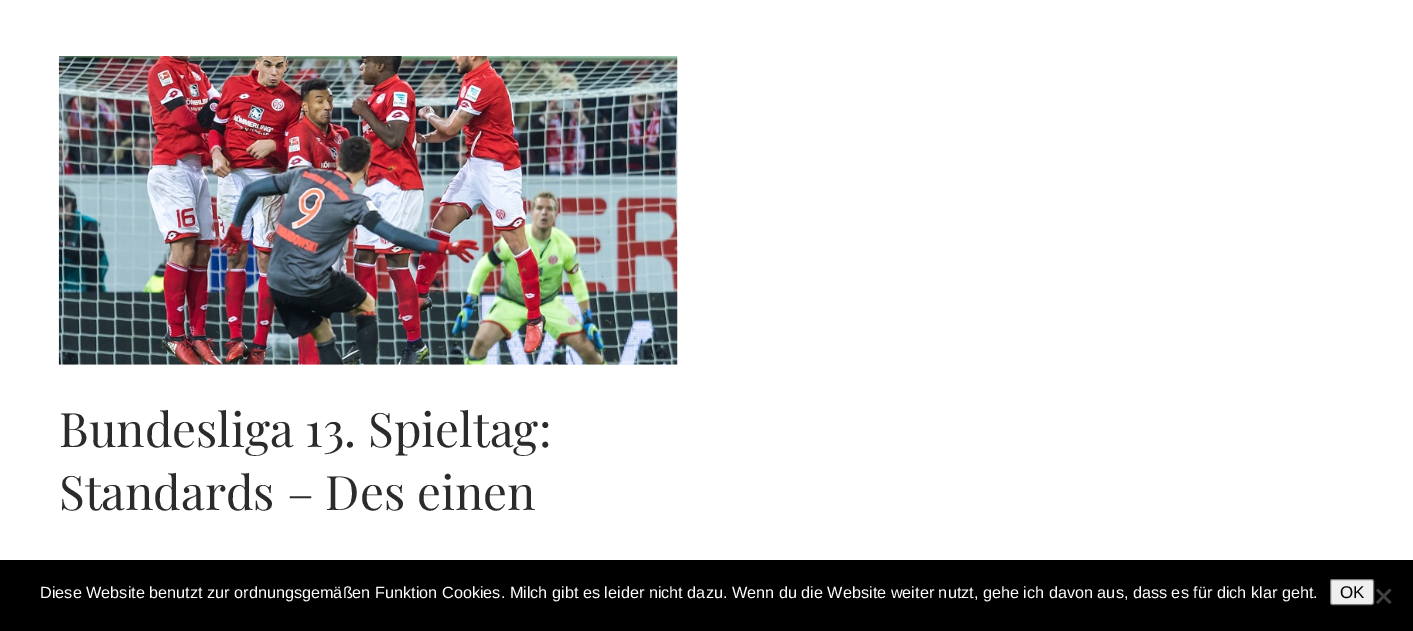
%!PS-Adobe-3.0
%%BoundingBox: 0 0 1413 631
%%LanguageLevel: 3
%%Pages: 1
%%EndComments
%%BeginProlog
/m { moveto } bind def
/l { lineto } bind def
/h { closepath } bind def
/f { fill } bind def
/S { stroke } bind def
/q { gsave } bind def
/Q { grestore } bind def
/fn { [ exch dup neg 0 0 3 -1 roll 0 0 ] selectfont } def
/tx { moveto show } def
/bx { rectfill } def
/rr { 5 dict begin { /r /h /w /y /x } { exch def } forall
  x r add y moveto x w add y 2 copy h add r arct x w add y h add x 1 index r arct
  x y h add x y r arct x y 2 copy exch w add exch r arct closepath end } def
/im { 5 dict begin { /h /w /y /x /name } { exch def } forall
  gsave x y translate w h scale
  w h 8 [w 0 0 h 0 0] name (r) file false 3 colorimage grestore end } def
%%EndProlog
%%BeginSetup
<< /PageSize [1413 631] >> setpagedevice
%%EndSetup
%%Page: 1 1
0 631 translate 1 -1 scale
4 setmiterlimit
1 setgray
0 0 1413 631 bx
(image0.raw) 58 56 620 309 im
/PlayfairDisplay-Regular 47.5 fn
0.169 setgray
(Bundesliga 13. Spieltag:) 59 447 tx
(Standards – Des einen) 59 510 tx
0 setgray
0 560 1413 71 bx
/LiberationSans-Regular 16.25 fn
1 setgray
(Diese Website benutzt zur ordnungsgemäßen Funktion Cookies. Milch gibt es leider nicht dazu. Wenn du die Website weiter nutzt, gehe ich davon aus, dass es für dich klar geht.) 40 598 tx
0.937 setgray
1330.5 579.5 43 25 2 rr q f Q
0.463 setgray
S
/LiberationSans-Regular 17 fn
0 setgray
(OK) 1340 598 tx
0.251 setgray
1389.5 588.5 m 1391.5 590.5 l 1378 604 l 1376 602 l h f
1376 590.5 m 1378 588.5 l 1391.5 602 l 1389.5 604 l h f
showpage
%%EOF
